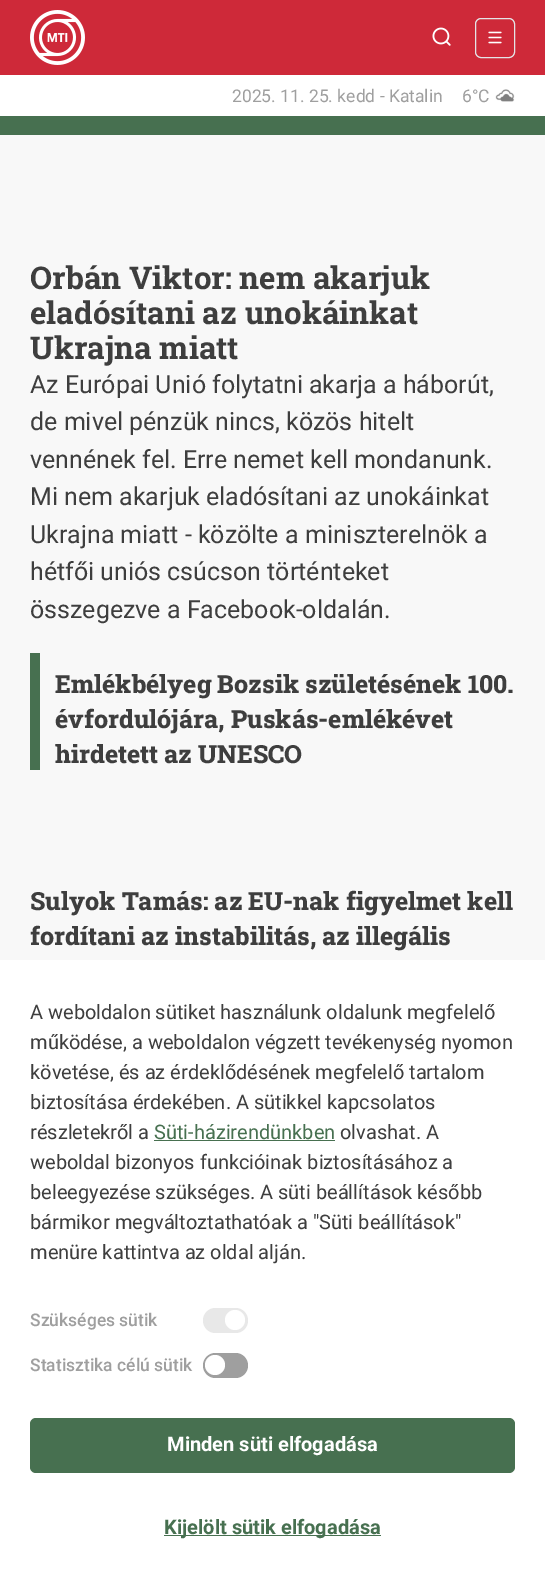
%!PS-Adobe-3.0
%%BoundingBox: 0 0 545 1580
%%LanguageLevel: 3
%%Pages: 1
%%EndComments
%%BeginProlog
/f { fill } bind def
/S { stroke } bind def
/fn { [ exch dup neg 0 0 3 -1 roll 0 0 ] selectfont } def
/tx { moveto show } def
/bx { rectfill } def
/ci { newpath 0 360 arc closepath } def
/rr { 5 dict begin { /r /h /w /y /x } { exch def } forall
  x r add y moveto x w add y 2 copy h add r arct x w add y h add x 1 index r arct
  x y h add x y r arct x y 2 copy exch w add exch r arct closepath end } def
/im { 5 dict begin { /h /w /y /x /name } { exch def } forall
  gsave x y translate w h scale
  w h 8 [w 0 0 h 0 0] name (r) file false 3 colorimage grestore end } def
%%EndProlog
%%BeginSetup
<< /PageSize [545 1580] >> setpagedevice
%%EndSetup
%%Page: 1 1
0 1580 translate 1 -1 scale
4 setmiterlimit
0.973 setgray
0 0 545 1580 bx
0.808 0.161 0.224 setrgbcolor
0 0 545 75 bx
(image0.raw) 30 10 55 55 im
(image1.raw) 432 27 19 19 im
0.894 0.894 0.906 setrgbcolor
475.5 18.5 39 39 5.5 rr S
(image2.raw) 488 31 14 13 im
1 setgray
0 75 545 41 bx
/Roboto-Regular 17.5 fn
0.624 setgray
(2025. 11. 25. kedd - Katalin) 232 102 tx
(6°C) 462 102 tx
(image3.raw) 495 89 20 13 im
0.278 0.439 0.314 setrgbcolor
0 116 545 19 bx
/RobotoSlab-Bold 31.25 fn
0.243 setgray
(Orbán Viktor: nem akarjuk) 30 289 tx
(eladósítani az unokáinkat) 30 324 tx
(Ukrajna miatt) 30 359 tx
/Roboto-Regular 25 fn
(Az Európai Unió folytatni akarja a háborút,) 30 393 tx
(de mivel pénzük nincs, közös hitelt) 30 430 tx
(vennének fel. Erre nemet kell mondanunk.) 30 468 tx
(Mi nem akarjuk eladósítani az unokáinkat) 30 505 tx
(Ukrajna miatt - közölte a miniszterelnök a) 30 543 tx
(hétfői uniós csúcson történteket) 30 580 tx
(összegezve a Facebook-oldalán.) 30 618 tx
0.278 0.439 0.314 setrgbcolor
30 653 10 117 bx
/RobotoSlab-ExtraBold 25 fn
0.243 setgray
(Emlékbélyeg Bozsik születésének 100.) 55 693 tx
(évfordulójára, Puskás-emlékévet) 55 728 tx
(hirdetett az UNESCO) 55 763 tx
(Sulyok Tamás: az EU-nak figyelmet kell) 30 910 tx
(fordítani az instabilitás, az illegális) 30 945 tx
1 setgray
0 960 545 620 bx
/Roboto-Regular 20 fn
0.243 setgray
(A weboldalon sütiket használunk oldalunk megfelelő) 30 1019 tx
(működése, a weboldalon végzett tevékenység nyomon) 30 1049 tx
(követése, és az érdeklődésének megfelelő tartalom) 30 1079 tx
(biztosítása érdekében. A sütikkel kapcsolatos) 30 1109 tx
(részletekről a) 30 1139 tx
0.278 0.439 0.314 setrgbcolor
(Süti-házirendünkben) 154 1139 tx
154 1140 181 1 bx
0.243 setgray
(olvashat. A) 340 1139 tx
(weboldal bizonyos funkcióinak biztosításához a) 30 1169 tx
(beleegyezése szükséges. A süti beállítások később) 30 1199 tx
(bármikor megváltoztathatóak a "Süti beállítások") 30 1229 tx
(menüre kattintva az oldal alján.) 30 1259 tx
/Roboto-Medium 17.5 fn
0.624 setgray
(Szükséges sütik) 30 1326 tx
0.91 setgray
203 1308 45 25 12.5 rr f
1 setgray
235 1320 10 ci f
0.624 setgray
(Statisztika célú sütik) 30 1371 tx
203 1353 45 25 12.5 rr f
1 setgray
215 1365 10 ci f
0.278 0.439 0.314 setrgbcolor
30 1418 485 55 6 rr f
/Roboto-Bold 20 fn
1 setgray
(Minden süti elfogadása) 167 1451 tx
0.278 0.439 0.314 setrgbcolor
164 1535 217 1 bx
(Kijelölt sütik elfogadása) 164 1534 tx
showpage
%%EOF
